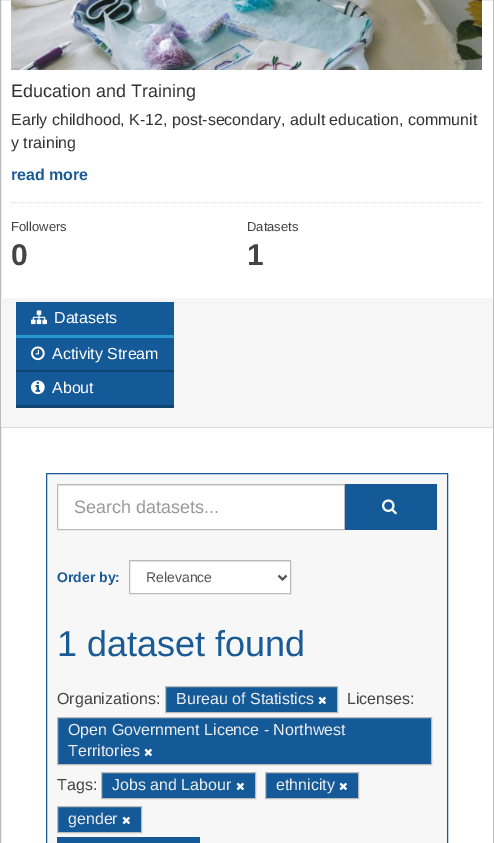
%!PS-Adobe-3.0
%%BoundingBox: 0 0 494 843
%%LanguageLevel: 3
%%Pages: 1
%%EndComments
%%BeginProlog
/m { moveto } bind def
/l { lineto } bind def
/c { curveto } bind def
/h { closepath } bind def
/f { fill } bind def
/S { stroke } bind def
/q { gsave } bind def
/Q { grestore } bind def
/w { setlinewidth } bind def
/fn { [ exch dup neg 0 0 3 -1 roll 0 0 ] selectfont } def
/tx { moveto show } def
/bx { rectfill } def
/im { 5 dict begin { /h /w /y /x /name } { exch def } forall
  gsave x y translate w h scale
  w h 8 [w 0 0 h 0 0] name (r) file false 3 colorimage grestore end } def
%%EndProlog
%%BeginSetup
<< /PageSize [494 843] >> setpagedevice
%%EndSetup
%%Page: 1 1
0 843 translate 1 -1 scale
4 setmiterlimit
1 setgray
0 0 494 843 bx
0.733 setgray
0.5 -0.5 493 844 rectstroke
(image0.raw) 11 0 471 70 im
/LiberationSans-Regular 18 fn
0.2 setgray
(Education and Training) 11 97 tx
/LiberationSans-Regular 16 fn
(Early childhood, K-12, post-secondary, adult education, communit) 11 125 tx
(y training) 11 148 tx
/LiberationSans-Bold 16 fn
0.102 0.357 0.588 setrgbcolor
(read more) 11 180 tx
0.867 setgray
[1 1] 0 setdash
11 202.5 m 482 202.5 l S
/LiberationSans-Regular 13 fn
0.267 setgray
(Followers) 11 231 tx
/LiberationSans-Bold 30 fn
(0) 11 265 tx
/LiberationSans-Regular 13 fn
(Datasets) 247 231 tx
/LiberationSans-Bold 30 fn
(1) 247 265 tx
0.965 setgray
1 298 m 490 298 l 491.5 298 493 299.5 493 301 c 493 428 l 1 428 l h f
0.867 setgray
1 427 492 1 bx
0.082 0.353 0.596 setrgbcolor
16 302 158 33 bx
0.149 0.6 0.835 setrgbcolor
16 335 158 3 bx
(image1.raw) 31 310 16 15 im
/LiberationSans-Regular 16 fn
1 setgray
(Datasets) 54 323 tx
0.082 0.353 0.596 setrgbcolor
16 338 158 32 bx
0.059 0.263 0.439 setrgbcolor
16 370 158 2 bx
(image2.raw) 31 346 14 15 im
1 setgray
(Activity Stream) 52 359 tx
0.082 0.353 0.596 setrgbcolor
16 372 158 33 bx
0.059 0.263 0.439 setrgbcolor
16 405 158 3 bx
(image3.raw) 31 380 14 15 im
1 setgray
(About) 52 393 tx
0.969 setgray
46.5 473.5 m 447.5 473.5 l 447.5 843.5 l 46.5 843.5 l h q f Q
0.102 0.357 0.588 setrgbcolor
[] 0 setdash
S
1 setgray
58 486 286 43 bx
0.925 setgray
58 485 286 1 bx
0.733 setgray
57.5 484.5 287 45 rectstroke
/LiberationSans-Regular 18 fn
0.6 setgray
(Search datasets...) 74 513 tx
0.082 0.353 0.596 setrgbcolor
345 484 92 46 bx
(image4.raw) 382 499 15 16 im
/LiberationSans-Bold 14 fn
0.102 0.357 0.588 setrgbcolor
(Order by:) 57 582 tx
1 setgray
130 562 160 31 bx
0.925 setgray
130 561 160 1 bx
0.733 setgray
129.5 560.5 161 33 rectstroke
0.333 setgray
2 w
278.5 575.5 m 282.5 579.5 l 286.5 575.5 l S
/LiberationSans-Regular 14 fn
(Relevance) 146 582 tx
/LiberationSans-Regular 36 fn
0.102 0.357 0.588 setrgbcolor
(1 dataset found) 57 656 tx
/LiberationSans-Regular 16 fn
0.267 setgray
(Organizations:) 57 704 tx
0.082 0.353 0.596 setrgbcolor
165.5 686.5 m 337.5 686.5 l 337.5 712.5 l 165.5 712.5 l h q f Q
0.733 setgray
1 w
S
0.933 setgray
(Bureau of Statistics) 176 704 tx
(image5.raw) 318 696 8 9 im
0.267 setgray
(Licenses:) 347 704 tx
0.082 0.353 0.596 setrgbcolor
57.5 717.5 m 431.5 717.5 l 431.5 764.5 l 57.5 764.5 l h q f Q
0.733 setgray
S
0.933 setgray
(Open Government Licence - Northwest) 68 735 tx
(Territories) 68 756 tx
(image5.raw) 144 748 8 9 im
0.267 setgray
(Tags:) 57 790 tx
0.082 0.353 0.596 setrgbcolor
101.5 772.5 m 255.5 772.5 l 255.5 798.5 l 101.5 798.5 l h q f Q
0.733 setgray
S
0.933 setgray
(Jobs and Labour) 112 790 tx
(image5.raw) 236 782 8 9 im
0.082 0.353 0.596 setrgbcolor
265.5 772.5 m 358.5 772.5 l 358.5 798.5 l 265.5 798.5 l h q f Q
0.733 setgray
S
0.933 setgray
(ethnicity) 276 790 tx
(image5.raw) 339 782 8 9 im
0.082 0.353 0.596 setrgbcolor
57.5 806.5 m 141.5 806.5 l 141.5 832.5 l 57.5 832.5 l h q f Q
0.733 setgray
S
0.933 setgray
(gender) 68 824 tx
(image5.raw) 122 816 8 9 im
0.082 0.353 0.596 setrgbcolor
57 837 143 6 bx
showpage
%%EOF
